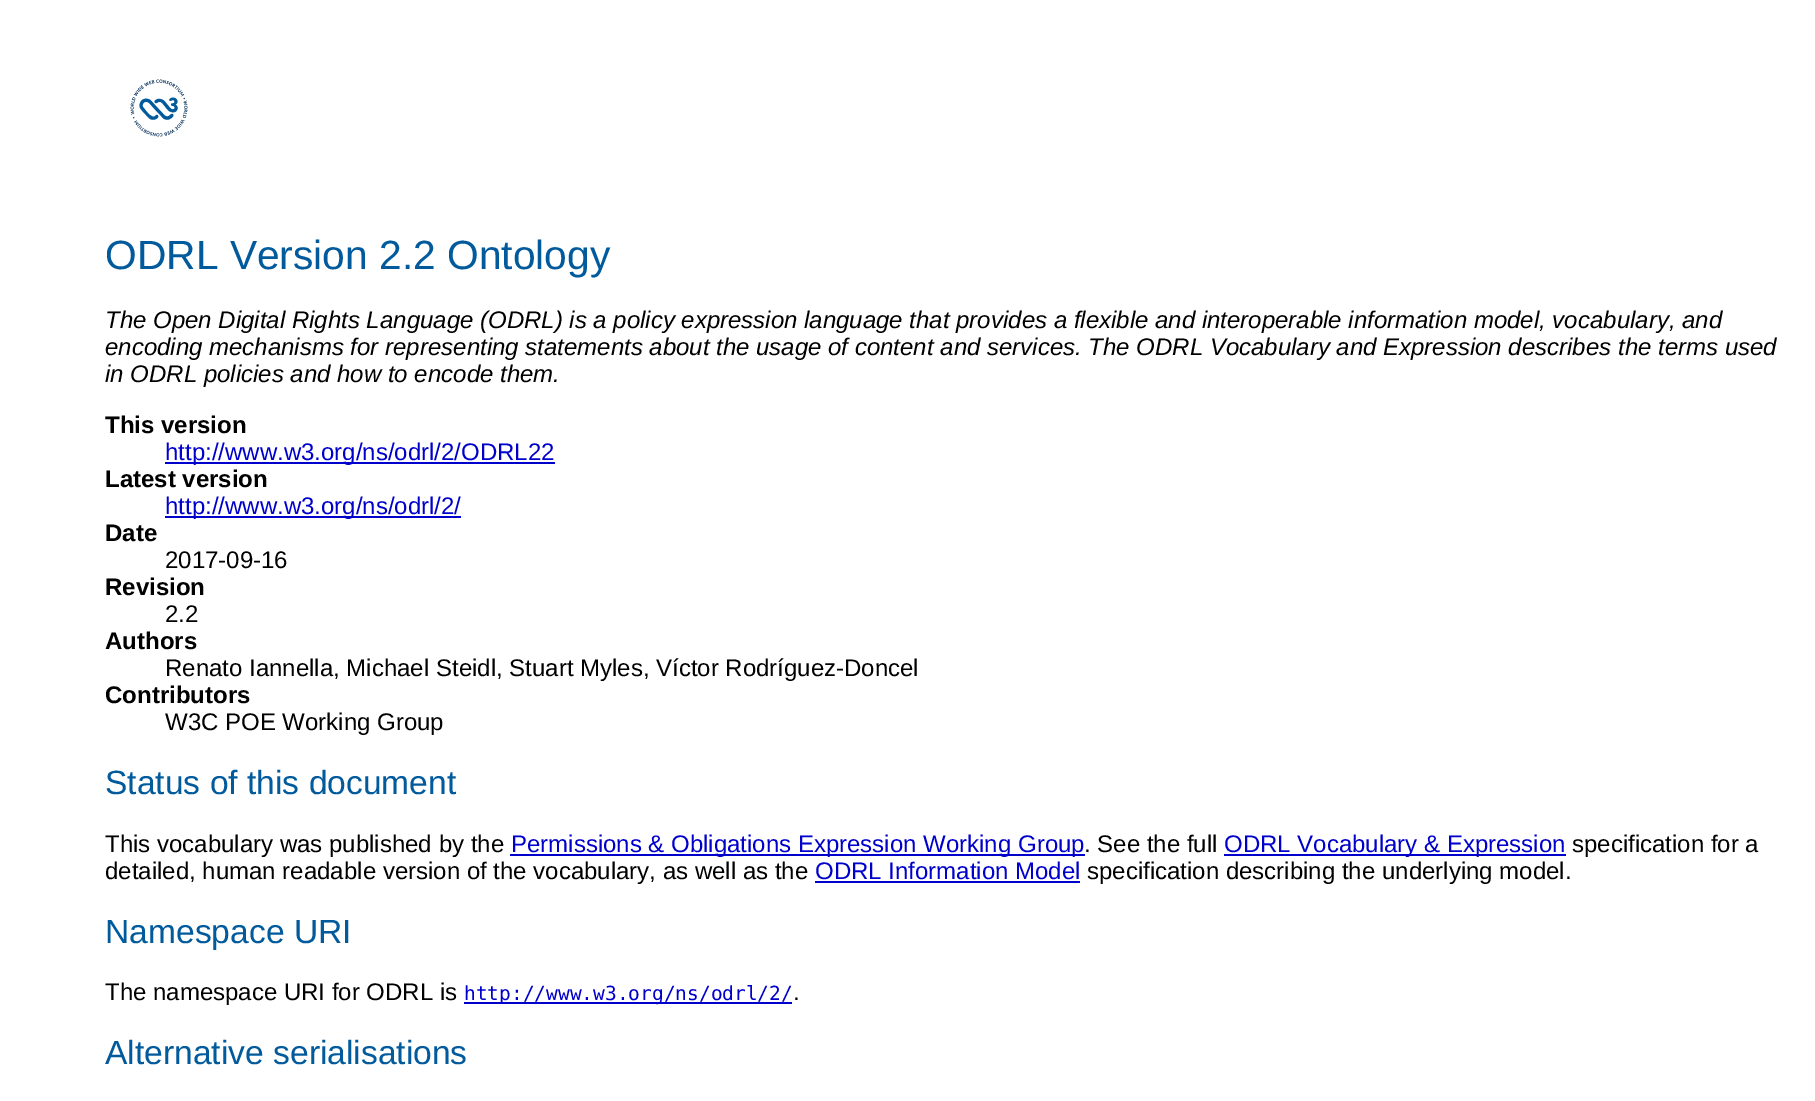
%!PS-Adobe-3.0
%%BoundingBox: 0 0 1815 1101
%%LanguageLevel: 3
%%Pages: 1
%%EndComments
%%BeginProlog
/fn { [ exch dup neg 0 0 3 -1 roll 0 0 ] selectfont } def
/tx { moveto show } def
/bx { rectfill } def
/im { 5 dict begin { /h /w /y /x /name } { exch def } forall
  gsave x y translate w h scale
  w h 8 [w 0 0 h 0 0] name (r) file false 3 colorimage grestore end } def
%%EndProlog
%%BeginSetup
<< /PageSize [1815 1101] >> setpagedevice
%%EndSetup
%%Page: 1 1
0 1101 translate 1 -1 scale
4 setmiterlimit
1 setgray
0 0 1815 1101 bx
(image0.raw) 130 79 58 58 im
/LiberationSans-Regular 40.75 fn
0 0.353 0.612 setrgbcolor
(ODRL Version 2.2 Ontology) 105 269 tx
/LiberationSans-Italic 24 fn
0 setgray
(The Open Digital Rights Language \(ODRL\) is a policy expression language that provides a flexible and interoperable information model, vocabulary, and) 105 328 tx
(encoding mechanisms for representing statements about the usage of content and services. The ODRL Vocabulary and Expression describes the terms used) 105 355 tx
(in ODRL policies and how to encode them.) 105 382 tx
/LiberationSans-Bold 24 fn
(This version) 105 433 tx
0 0 0.8 setrgbcolor
165 462 390 2 bx
/LiberationSans-Regular 24 fn
(http://www.w3.org/ns/odrl/2/ODRL22) 165 460 tx
/LiberationSans-Bold 24 fn
0 setgray
(Latest version) 105 487 tx
0 0 0.8 setrgbcolor
165 516 296 2 bx
/LiberationSans-Regular 24 fn
(http://www.w3.org/ns/odrl/2/) 165 514 tx
/LiberationSans-Bold 24 fn
0 setgray
(Date) 105 541 tx
/LiberationSans-Regular 24 fn
(2017-09-16) 165 568 tx
/LiberationSans-Bold 24 fn
(Revision) 105 595 tx
/LiberationSans-Regular 24 fn
(2.2) 165 622 tx
/LiberationSans-Bold 24 fn
(Authors) 105 649 tx
/LiberationSans-Regular 24 fn
(Renato Iannella, Michael Steidl, Stuart Myles, Víctor Rodríguez-Doncel) 165 676 tx
/LiberationSans-Bold 24 fn
(Contributors) 105 703 tx
/LiberationSans-Regular 24 fn
(W3C POE Working Group) 165 730 tx
/LiberationSans-Regular 33.6 fn
0 0.353 0.612 setrgbcolor
(Status of this document) 105 794 tx
/LiberationSans-Regular 24 fn
0 setgray
(This vocabulary was published by the) 105 852 tx
0 0 0.8 setrgbcolor
510 854 575 2 bx
(Permissions & Obligations Expression Working Group) 511 852 tx
0 setgray
(. See the full) 1084 852 tx
0 0 0.8 setrgbcolor
1224 854 342 2 bx
(ODRL Vocabulary & Expression) 1224 852 tx
0 setgray
(specification for a) 1572 852 tx
(detailed, human readable version of the vocabulary, as well as the) 105 879 tx
0 0 0.8 setrgbcolor
(ODRL Information Model) 815 879 tx
815 881 265 2 bx
0 setgray
(specification describing the underlying model.) 1087 879 tx
/LiberationSans-Regular 33.6 fn
0 0.353 0.612 setrgbcolor
(Namespace URI) 105 943 tx
/LiberationSans-Regular 24 fn
0 setgray
(The namespace URI for ODRL is) 105 1000 tx
0 0 0.8 setrgbcolor
464 1002 328 2 bx
/DejaVuSansMono-Regular 19.5 fn
(http://www.w3.org/ns/odrl/2/) 464 1000 tx
/LiberationSans-Regular 24 fn
0 setgray
(.) 793 1000 tx
/LiberationSans-Regular 33.6 fn
0 0.353 0.612 setrgbcolor
(Alternative serialisations) 105 1064 tx
showpage
%%EOF
